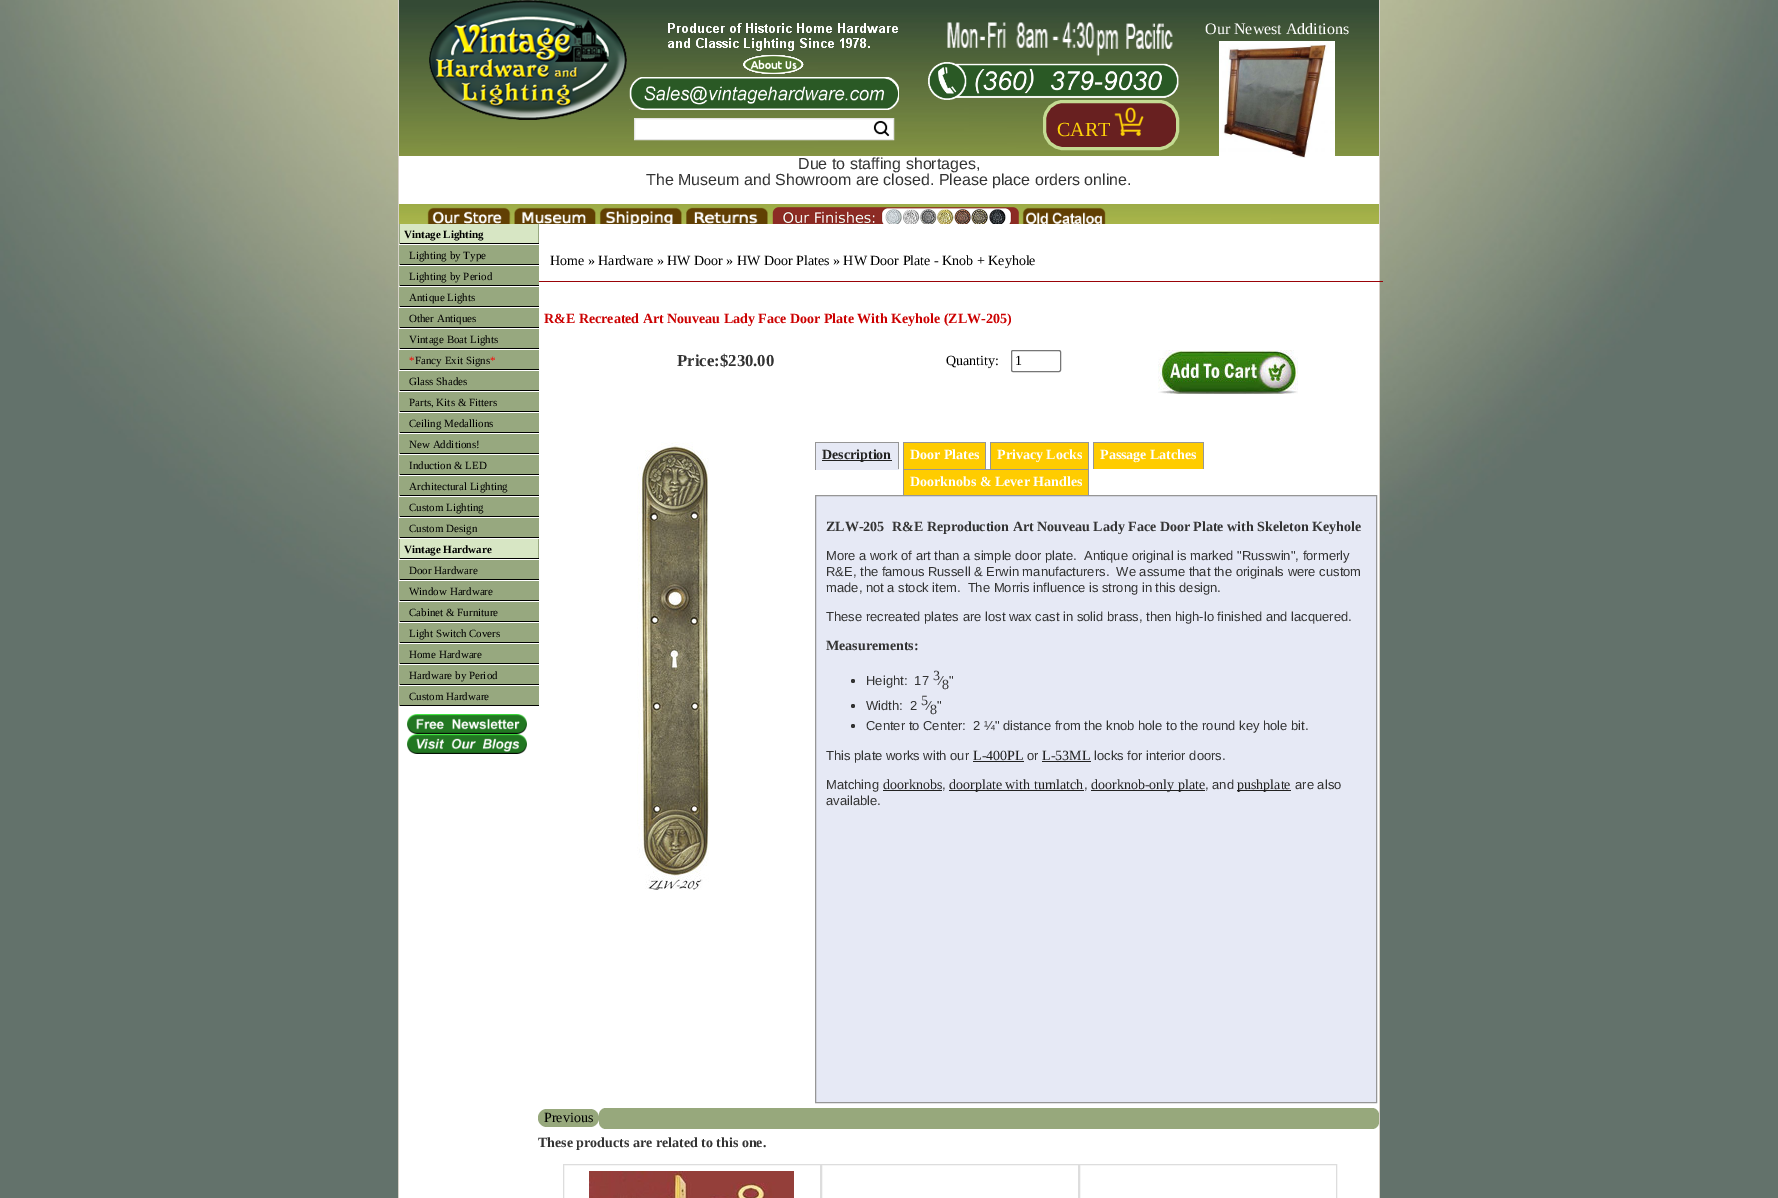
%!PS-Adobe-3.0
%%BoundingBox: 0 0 1778 1198
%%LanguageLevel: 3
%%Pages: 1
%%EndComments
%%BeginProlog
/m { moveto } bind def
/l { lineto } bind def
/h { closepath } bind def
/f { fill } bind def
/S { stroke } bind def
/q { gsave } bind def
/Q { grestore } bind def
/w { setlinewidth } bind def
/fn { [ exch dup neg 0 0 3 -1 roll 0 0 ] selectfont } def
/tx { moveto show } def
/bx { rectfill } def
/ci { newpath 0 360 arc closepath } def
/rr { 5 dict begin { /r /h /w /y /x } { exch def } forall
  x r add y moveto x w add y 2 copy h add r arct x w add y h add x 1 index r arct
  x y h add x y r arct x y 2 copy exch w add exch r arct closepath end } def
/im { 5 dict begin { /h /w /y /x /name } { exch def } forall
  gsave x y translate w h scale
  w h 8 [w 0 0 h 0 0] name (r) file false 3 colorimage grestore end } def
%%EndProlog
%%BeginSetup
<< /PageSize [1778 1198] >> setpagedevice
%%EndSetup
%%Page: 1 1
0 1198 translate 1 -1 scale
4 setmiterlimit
1 setgray
0 0 1778 1198 bx
(image0.raw) 0 0 1778 1198 im
399 244 139 954 bx
0.843 0.82 0.788 setrgbcolor
1379 0 1 1198 bx
398 0 1 1198 bx
(image1.raw) 399 0 980 224 im
(image2.raw) 429 0 198 120 im
(image3.raw) 668 23 230 52 im
(image4.raw) 629 77 270 33 im
1 setgray
634.5 118.5 m 893.5 118.5 l 893.5 139.5 l 634.5 139.5 l h q f Q
0.898 setgray
S
(image5.raw) 873 120 17 17 im
(image6.raw) 947 22 226 34 im
(image7.raw) 928 62 251 38 im
0.408 0.125 0.125 setrgbcolor
1044.5 101.5 133 47 18.5 rr q f Q
0.769 0.859 0.573 setrgbcolor
3 w
S
/LiberationSerif-Regular 20 fn
0.992 0.824 0.039 setrgbcolor
(CART) 1057 136 tx
(image8.raw) 1114 113 11 23 im
(image9.raw) 1125 107 11 25 im
(image10.raw) 1136 116 8 20 im
/LiberationSerif-Regular 16 fn
1 setgray
(Our Newest Additions) 1205 34 tx
399 156 980 48 bx
(image11.raw) 1219 41 116 117 im
/LiberationSans-Regular 16 fn
0.2 setgray
(Due to staffing shortages,) 798 169 tx
(The Museum and Showroom are closed. Please place orders online.) 646 185 tx
(image12.raw) 427 207 84 17 im
(image13.raw) 514 207 82 17 im
(image14.raw) 599 207 83 17 im
(image15.raw) 686 207 82 17 im
(image16.raw) 772 207 247 17 im
(image17.raw) 1022 207 84 17 im
0.843 0.902 0.769 setrgbcolor
400 224 138 19 bx
1 setgray
538 224 841 974 bx
0.592 0.659 0.498 setrgbcolor
538 224 1 20 bx
0 setgray
399 243 140 1 bx
0.592 0.659 0.498 setrgbcolor
399 224 1 20 bx
/LiberationSerif-Bold 11 fn
0 setgray
(Vintage Lighting) 404 238 tx
0.592 0.659 0.498 setrgbcolor
400 245 139 19 bx
0 setgray
399 264 140 1 bx
0.592 0.659 0.498 setrgbcolor
399 245 1 20 bx
/LiberationSerif-Regular 11 fn
0 setgray
(Lighting by Type) 409 259 tx
0.604 0.012 0.031 setrgbcolor
538 281 845 1 bx
0.592 0.659 0.498 setrgbcolor
400 266 139 19 bx
0 setgray
399 285 140 1 bx
0.592 0.659 0.498 setrgbcolor
399 266 1 20 bx
0 setgray
(Lighting by Period) 409 280 tx
0.592 0.659 0.498 setrgbcolor
400 287 139 19 bx
0 setgray
399 306 140 1 bx
0.592 0.659 0.498 setrgbcolor
399 287 1 20 bx
0 setgray
(Antique Lights) 409 301 tx
0.592 0.659 0.498 setrgbcolor
400 308 139 19 bx
0 setgray
399 327 140 1 bx
0.592 0.659 0.498 setrgbcolor
399 308 1 20 bx
0 setgray
(Other Antiques) 409 322 tx
0.592 0.659 0.498 setrgbcolor
400 329 139 19 bx
0 setgray
399 348 140 1 bx
0.592 0.659 0.498 setrgbcolor
399 329 1 20 bx
0 setgray
(Vintage Boat Lights) 409 343 tx
0.592 0.659 0.498 setrgbcolor
400 350 139 19 bx
0 setgray
399 369 140 1 bx
0.592 0.659 0.498 setrgbcolor
399 350 1 20 bx
1 0 0 setrgbcolor
(*) 409 364 tx
0 setgray
(Fancy Exit Signs) 415 364 tx
1 0 0 setrgbcolor
(*) 490 364 tx
0.592 0.659 0.498 setrgbcolor
400 371 139 19 bx
0 setgray
399 390 140 1 bx
0.592 0.659 0.498 setrgbcolor
399 371 1 20 bx
0 setgray
(Glass Shades) 409 385 tx
0.592 0.659 0.498 setrgbcolor
400 392 139 19 bx
0 setgray
399 411 140 1 bx
0.592 0.659 0.498 setrgbcolor
399 392 1 20 bx
0 setgray
(Parts, Kits & Fitters) 409 406 tx
0.592 0.659 0.498 setrgbcolor
400 413 139 19 bx
0 setgray
399 432 140 1 bx
0.592 0.659 0.498 setrgbcolor
399 413 1 20 bx
0 setgray
(Ceiling Medallions) 409 427 tx
0.592 0.659 0.498 setrgbcolor
400 434 139 19 bx
0 setgray
399 453 140 1 bx
0.592 0.659 0.498 setrgbcolor
399 434 1 20 bx
0 setgray
(New Additions!) 409 448 tx
0.592 0.659 0.498 setrgbcolor
400 455 139 19 bx
0 setgray
399 474 140 1 bx
0.592 0.659 0.498 setrgbcolor
399 455 1 20 bx
0 setgray
(Induction & LED) 409 469 tx
0.592 0.659 0.498 setrgbcolor
400 476 139 19 bx
0 setgray
399 495 140 1 bx
0.592 0.659 0.498 setrgbcolor
399 476 1 20 bx
0 setgray
(Architectural Lighting) 409 490 tx
0.592 0.659 0.498 setrgbcolor
400 497 139 19 bx
0 setgray
399 516 140 1 bx
0.592 0.659 0.498 setrgbcolor
399 497 1 20 bx
0 setgray
(Custom Lighting) 409 511 tx
0.592 0.659 0.498 setrgbcolor
400 518 139 19 bx
0 setgray
399 537 140 1 bx
0.592 0.659 0.498 setrgbcolor
399 518 1 20 bx
0 setgray
(Custom Design) 409 532 tx
0.843 0.902 0.769 setrgbcolor
400 539 138 19 bx
0.592 0.659 0.498 setrgbcolor
538 539 1 20 bx
0 setgray
399 558 140 1 bx
0.592 0.659 0.498 setrgbcolor
399 539 1 20 bx
/LiberationSerif-Bold 11 fn
0 setgray
(Vintage Hardware) 404 553 tx
0.592 0.659 0.498 setrgbcolor
400 560 139 19 bx
0 setgray
399 579 140 1 bx
0.592 0.659 0.498 setrgbcolor
399 560 1 20 bx
/LiberationSerif-Regular 11 fn
0 setgray
(Door Hardware) 409 574 tx
0.592 0.659 0.498 setrgbcolor
400 581 139 19 bx
0 setgray
399 600 140 1 bx
0.592 0.659 0.498 setrgbcolor
399 581 1 20 bx
0 setgray
(Window Hardware) 409 595 tx
0.592 0.659 0.498 setrgbcolor
400 602 139 19 bx
0 setgray
399 621 140 1 bx
0.592 0.659 0.498 setrgbcolor
399 602 1 20 bx
0 setgray
(Cabinet & Furniture) 409 616 tx
0.592 0.659 0.498 setrgbcolor
400 623 139 19 bx
0 setgray
399 642 140 1 bx
0.592 0.659 0.498 setrgbcolor
399 623 1 20 bx
0 setgray
(Light Switch Covers) 409 637 tx
0.592 0.659 0.498 setrgbcolor
400 644 139 19 bx
0 setgray
399 663 140 1 bx
0.592 0.659 0.498 setrgbcolor
399 644 1 20 bx
0 setgray
(Home Hardware) 409 658 tx
0.592 0.659 0.498 setrgbcolor
400 665 139 19 bx
0 setgray
399 684 140 1 bx
0.592 0.659 0.498 setrgbcolor
399 665 1 20 bx
0 setgray
(Hardware by Period) 409 679 tx
0.592 0.659 0.498 setrgbcolor
400 686 139 19 bx
0 setgray
399 705 140 1 bx
0.592 0.659 0.498 setrgbcolor
399 686 1 20 bx
0 setgray
(Custom Hardware) 409 700 tx
(image18.raw) 407 714 120 20 im
(image19.raw) 407 734 120 20 im
/LiberationSerif-Regular 14 fn
(Home » Hardware » HW Door » HW Door Plates » HW Door Plate - Knob + Keyhole) 550 265 tx
/LiberationSerif-Bold 14 fn
0.8 0 0 setrgbcolor
(R&E Recreated Art Nouveau Lady Face Door Plate With Keyhole \(ZLW-205\)) 544 323 tx
/LiberationSerif-Bold 16.75 fn
0.2 setgray
(Price:$230.00) 677 366 tx
/LiberationSerif-Regular 14 fn
0 setgray
(Quantity:) 946 365 tx
0.463 setgray
1 w
1011.5 350.5 49 21 1.5 rr S
0 setgray
(1) 1015 365 tx
(image20.raw) 1158 350 140 44 im
(image21.raw) 637 442 72 448 im
0.902 0.914 0.961 setrgbcolor
816 443 82 26 bx
0.588 setgray
815 442 84 1 bx
898 442 1 28 bx
0.902 0.914 0.961 setrgbcolor
815 469 84 1 bx
0.588 setgray
815 442 1 28 bx
0.133 setgray
822 460 70 1 bx
/LiberationSerif-Bold 14 fn
(Description) 822 459 tx
1 0.8 0 setrgbcolor
904 443 81 26 bx
0.588 setgray
903 442 83 1 bx
985 442 1 27 bx
903 442 1 27 bx
1 setgray
(Door Plates) 910 459 tx
1 0.8 0 setrgbcolor
991 443 97 26 bx
0.588 setgray
990 442 99 1 bx
1088 442 1 27 bx
990 442 1 27 bx
1 setgray
(Privacy Locks) 997 459 tx
1 0.8 0 setrgbcolor
1094 443 109 26 bx
0.588 setgray
1093 442 111 1 bx
1203 442 1 27 bx
1093 442 1 27 bx
1 setgray
(Passage Latches) 1100 459 tx
1 0.8 0 setrgbcolor
904 470 184 25 bx
0.588 setgray
903 469 186 1 bx
1088 469 1 27 bx
903 469 1 27 bx
1 setgray
(Doorknobs & Lever Handles) 910 486 tx
0.902 0.914 0.961 setrgbcolor
815.5 495.5 m 1376.5 495.5 l 1376.5 1102.5 l 815.5 1102.5 l h q f Q
0.588 setgray
S
0.2 setgray
(ZLW-205) 826 531 tx
(R&E Reproduction Art Nouveau Lady Face Door Plate with Skeleton Keyhole) 892 531 tx
/LiberationSans-Regular 13 fn
(More a work of art than a simple door plate.  Antique original is marked "Russwin", formerly) 826 560 tx
(R&E, the famous Russell & Erwin manufacturers.  We assume that the originals were custom) 826 576 tx
(made, not a stock item.  The Morris influence is strong in this design.) 826 592 tx
(These recreated plates are lost wax cast in solid brass, then high-lo finished and lacquered.) 826 621 tx
/LiberationSerif-Bold 14 fn
(Measurements:) 826 650 tx
/LiberationSans-Regular 13 fn
(Height:  17) 866 685 tx
/LiberationSerif-Regular 14 fn
(3) 933 680 tx
/LiberationSans-Regular 13 fn
(⁄) 940 685 tx
(") 949 685 tx
853 681 2 ci f
/LiberationSerif-Regular 14 fn
(8) 942 689 tx
/LiberationSans-Regular 13 fn
(Width:  2) 866 710 tx
/LiberationSerif-Regular 14 fn
(5) 921 705 tx
/LiberationSans-Regular 13 fn
(⁄) 928 710 tx
(") 937 710 tx
853 706 2 ci f
/LiberationSerif-Regular 14 fn
(8) 930 714 tx
853 726 2 ci f
/LiberationSans-Regular 13 fn
(Center to Center:  2 ¼" distance from the knob hole to the round key hole bit.) 866 730 tx
(This plate works with our) 826 760 tx
/LiberationSerif-Regular 14 fn
0.133 setgray
(L-400PL) 973 760 tx
973 761 51 1 bx
/LiberationSans-Regular 13 fn
0.2 setgray
(or) 1027 760 tx
/LiberationSerif-Regular 14 fn
0.133 setgray
(L-53ML) 1042 760 tx
1042 761 49 1 bx
/LiberationSans-Regular 13 fn
0.2 setgray
(locks for interior doors.) 1094 760 tx
(Matching) 826 789 tx
/LiberationSerif-Regular 14 fn
0.133 setgray
(doorknobs) 883 789 tx
883 790 59 1 bx
/LiberationSans-Regular 13 fn
0.2 setgray
(,) 942 789 tx
0.133 setgray
949 790 135 1 bx
/LiberationSerif-Regular 14 fn
(doorplate with turnlatch) 949 789 tx
/LiberationSans-Regular 13 fn
0.2 setgray
(,) 1084 789 tx
0.133 setgray
1091 790 114 1 bx
/LiberationSerif-Regular 14 fn
(doorknob-only plate) 1091 789 tx
/LiberationSans-Regular 13 fn
0.2 setgray
(, and) 1205 789 tx
0.133 setgray
1237 790 54 1 bx
/LiberationSerif-Regular 14 fn
(pushplate) 1237 789 tx
/LiberationSans-Regular 13 fn
0.2 setgray
(are also) 1295 789 tx
(available.) 826 805 tx
0.592 0.659 0.486 setrgbcolor
538 1109 61 18 9 rr f
/LiberationSerif-Regular 14 fn
0 setgray
(Previous) 544 1122 tx
0.592 0.659 0.486 setrgbcolor
599 1108 780 21 7 rr f
/LiberationSerif-Bold 14 fn
0.2 setgray
(These products are related to this one.) 538 1147 tx
0.867 setgray
563.5 1164.5 257 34 rectstroke
(image22.raw) 589 1171 205 27 im
821.5 1164.5 257 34 rectstroke
1079.5 1164.5 257 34 rectstroke
showpage
%%EOF
